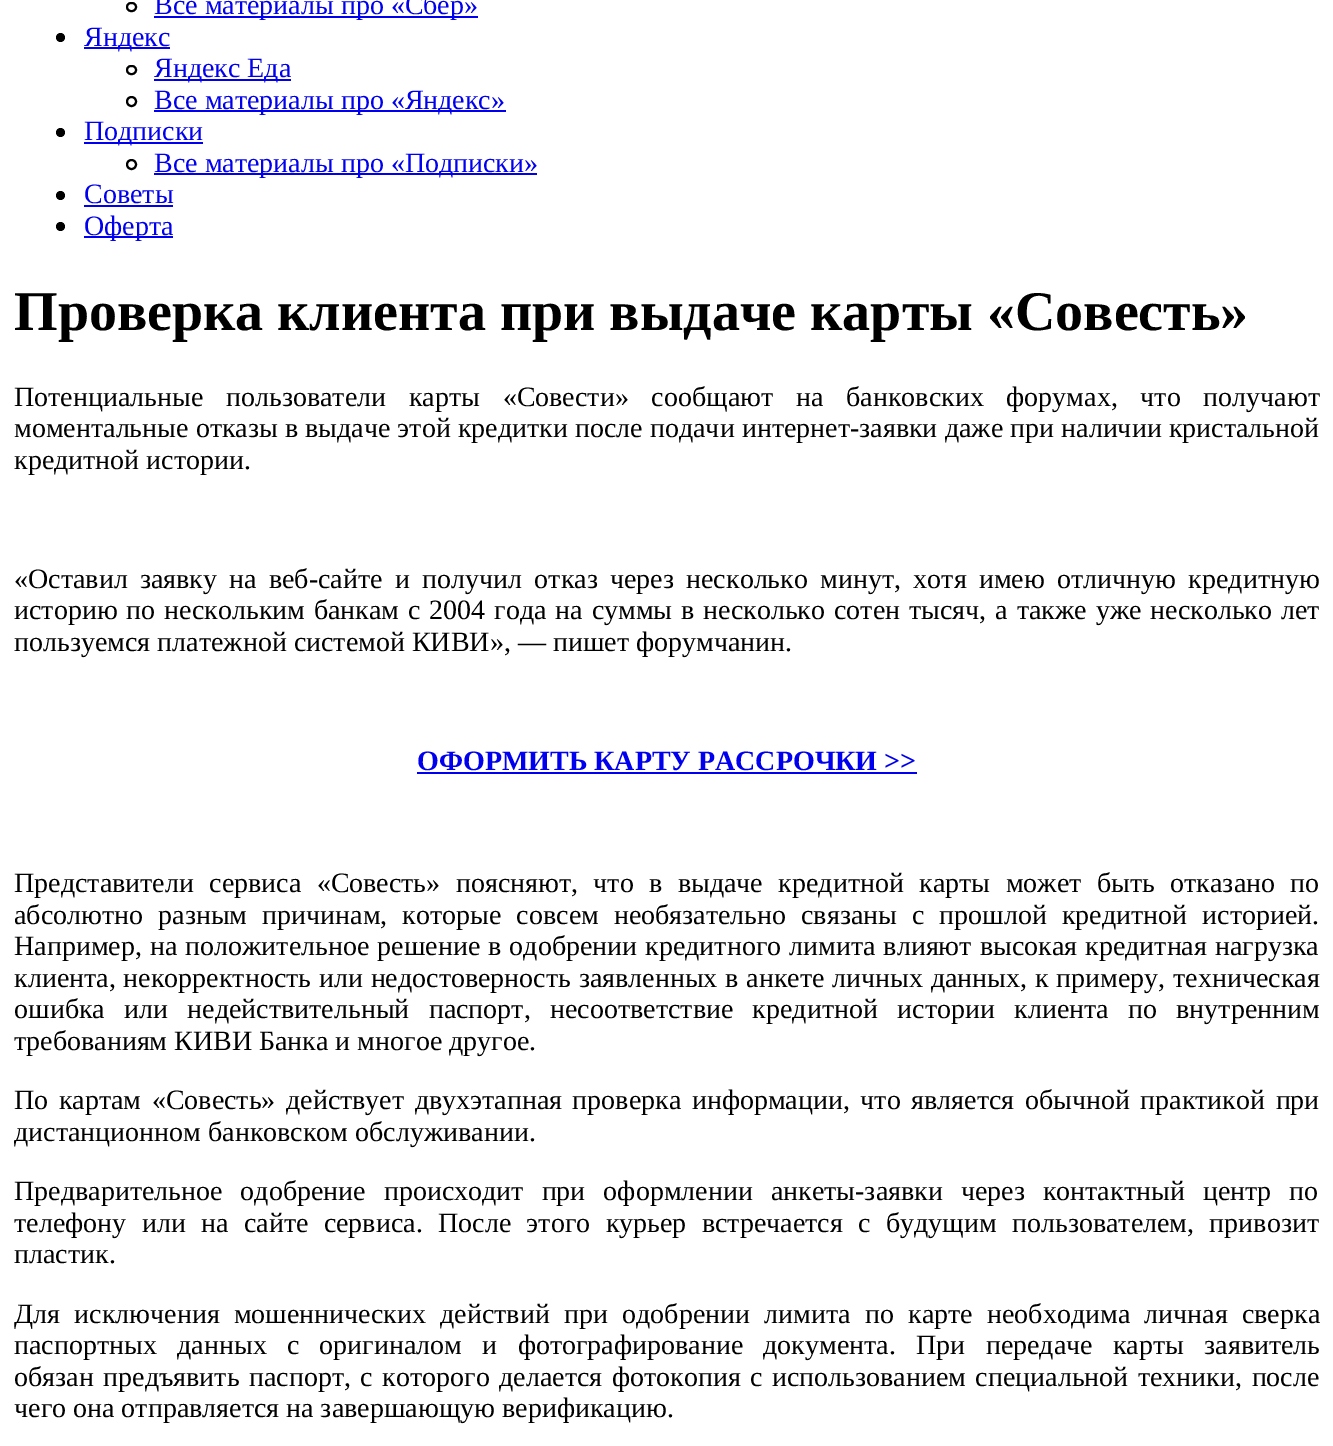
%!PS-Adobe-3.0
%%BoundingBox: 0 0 1333 1446
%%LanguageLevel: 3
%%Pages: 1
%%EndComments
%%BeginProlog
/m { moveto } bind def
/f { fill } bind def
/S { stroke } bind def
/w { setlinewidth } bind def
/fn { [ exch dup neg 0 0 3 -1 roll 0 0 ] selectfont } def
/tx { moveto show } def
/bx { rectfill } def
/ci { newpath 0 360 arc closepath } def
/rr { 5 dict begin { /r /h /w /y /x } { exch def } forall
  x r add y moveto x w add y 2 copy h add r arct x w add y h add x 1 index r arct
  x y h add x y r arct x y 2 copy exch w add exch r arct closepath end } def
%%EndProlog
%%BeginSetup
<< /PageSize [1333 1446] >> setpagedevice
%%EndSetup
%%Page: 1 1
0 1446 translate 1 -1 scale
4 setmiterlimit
1 setgray
0 0 1333 1446 bx
0 setgray
2 w
127 3 9 8 4 rr S
0 0 0.933 setrgbcolor
154 16 324 2 bx
/LiberationSerif-Regular 28 fn
(Все материалы про «Сбер») 154 14 tx
0 setgray
60.5 37.5 4.5 ci f
0 0 0.933 setrgbcolor
84 47 86 2 bx
(Яндекс) 84 46 tx
0 setgray
127 66 9 8 4 rr S
0 0 0.933 setrgbcolor
154 79 137 2 bx
(Яндекс Еда) 154 77 tx
0 setgray
131.5 101.5 4.5 ci S
0 0 0.933 setrgbcolor
154 110 352 2 bx
(Все материалы про «Яндекс») 154 109 tx
0 setgray
60.5 132.5 4.5 ci f
0 0 0.933 setrgbcolor
84 142 119 2 bx
(Подписки) 84 140 tx
0 setgray
131.5 164.5 4.5 ci S
0 0 0.933 setrgbcolor
154 173 383 2 bx
(Все материалы про «Подписки») 154 172 tx
0 setgray
60.5 195.5 4.5 ci f
0 0 0.933 setrgbcolor
(Советы) 84 203 tx
84 205 89 2 bx
0 setgray
60.5 226.5 4.5 ci f
0 0 0.933 setrgbcolor
84 236 89 2 bx
(Оферта) 84 235 tx
/LiberationSerif-Bold 56 fn
0 setgray
(Проверка клиента при выдаче карты «Совесть») 14 330 tx
/LiberationSerif-Regular 28 fn
14 406 m 15.75 0 32 (Потенциальные пользователи карты «Совести» сообщают на банковских форумах, что получают) widthshow
14 437 m 0.1 0 32 (моментальные отказы в выдаче этой кредитки после подачи интернет-заявки даже при наличии кристальной) widthshow
(кредитной истории.) 14 469 tx
14 588 m 5.25 0 32 («Оставил заявку на веб-сайте и получил отказ через несколько минут, хотя имею отличную кредитную) widthshow
14 619 m 1.9 0 32 (историю по нескольким банкам с 2004 года на суммы в несколько сотен тысяч, а также уже несколько лет) widthshow
(пользуемся платежной системой КИВИ», — пишет форумчанин.) 14 651 tx
/LiberationSerif-Bold 28 fn
0 0 0.933 setrgbcolor
(ОФОРМИТЬ КАРТУ РАССРОЧКИ >>) 417 770 tx
417 772 500 2 bx
/LiberationSerif-Regular 28 fn
0 setgray
14 892 m 8.4 0 32 (Представители сервиса «Совесть» поясняют, что в выдаче кредитной карты может быть отказано по) widthshow
14 924 m 8 0 32 (абсолютно разным причинам, которые совсем необязательно связаны с прошлой кредитной историей.) widthshow
14 955 m 1 0 32 (Например, на положительное решение в одобрении кредитного лимита влияют высокая кредитная нагрузка) widthshow
14 987 m 0.75 0 32 (клиента, некорректность или недостоверность заявленных в анкете личных данных, к примеру, техническая) widthshow
14 1018 m 12.25 0 32 (ошибка или недействительный паспорт, несоответствие кредитной истории клиента по внутренним) widthshow
(требованиям КИВИ Банка и многое другое.) 14 1050 tx
14 1109 m 3.5 0 32 (По картам «Совесть» действует двухэтапная проверка информации, что является обычной практикой при) widthshow
(дистанционном банковском обслуживании.) 14 1141 tx
14 1200 m 11 0 32 (Предварительное одобрение происходит при оформлении анкеты-заявки через контактный центр по) widthshow
14 1232 m 8.4 0 32 (телефону или на сайте сервиса. После этого курьер встречается с будущим пользователем, привозит) widthshow
(пластик.) 14 1263 tx
14 1323 m 7.25 0 32 (Для исключения мошеннических действий при одобрении лимита по карте необходима личная сверка) widthshow
14 1354 m 13.25 0 32 (паспортных данных с оригиналом и фотографирование документа. При передаче карты заявитель) widthshow
14 1386 m 2.5 0 32 (обязан предъявить паспорт, с которого делается фотокопия с использованием специальной техники, после) widthshow
(чего она отправляется на завершающую верификацию.) 14 1417 tx
showpage
%%EOF
